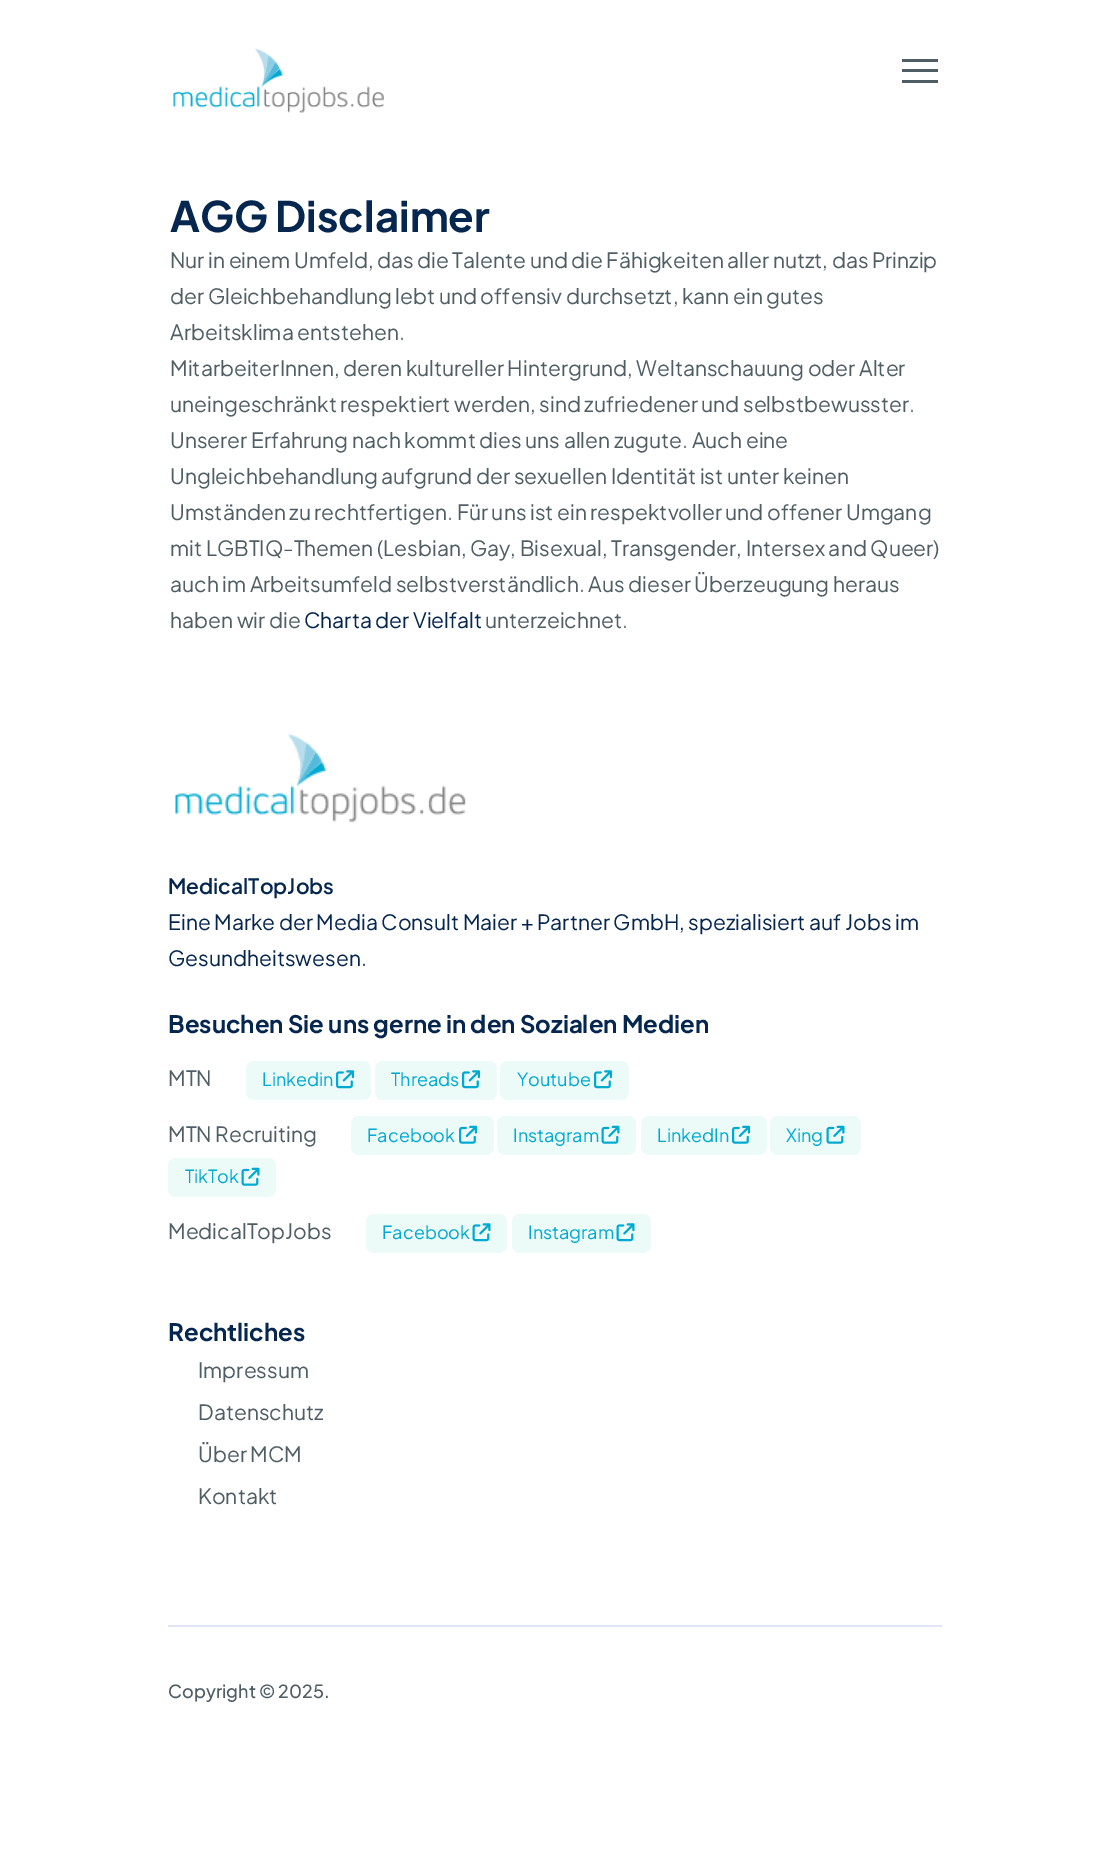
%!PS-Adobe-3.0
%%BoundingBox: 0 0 1110 1866
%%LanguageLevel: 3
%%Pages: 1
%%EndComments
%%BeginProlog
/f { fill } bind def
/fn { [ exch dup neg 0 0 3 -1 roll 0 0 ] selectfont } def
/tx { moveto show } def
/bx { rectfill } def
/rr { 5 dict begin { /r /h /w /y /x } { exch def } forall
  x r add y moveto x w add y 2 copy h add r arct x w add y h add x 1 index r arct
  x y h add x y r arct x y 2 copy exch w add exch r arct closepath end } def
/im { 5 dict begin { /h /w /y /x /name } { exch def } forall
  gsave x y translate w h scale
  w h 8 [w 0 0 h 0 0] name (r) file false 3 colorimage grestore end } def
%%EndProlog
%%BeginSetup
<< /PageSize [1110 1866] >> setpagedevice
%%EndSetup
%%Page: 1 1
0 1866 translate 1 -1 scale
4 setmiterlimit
1 setgray
0 0 1110 1866 bx
(image0.raw) 173 48 211 65 im
0.31 0.369 0.392 setrgbcolor
902 59 36 3 bx
902 69 36 3 bx
902 80 36 3 bx
/PlusJakartaSans-Bold 42 fn
0.02 0.149 0.306 setrgbcolor
(AGG Disclaimer) 170 232 tx
/PlusJakartaSans-Regular 21 fn
0.31 0.369 0.392 setrgbcolor
(Nur in einem Umfeld, das die Talente und die Fähigkeiten aller nutzt, das Prinzip) 170 268 tx
(der Gleichbehandlung lebt und offensiv durchsetzt, kann ein gutes) 170 304 tx
(Arbeitsklima entstehen.) 170 340 tx
(MitarbeiterInnen, deren kultureller Hintergrund, Weltanschauung oder Alter) 170 376 tx
(uneingeschränkt respektiert werden, sind zufriedener und selbstbewusster.) 170 412 tx
(Unserer Erfahrung nach kommt dies uns allen zugute. Auch eine) 170 448 tx
(Ungleichbehandlung aufgrund der sexuellen Identität ist unter keinen) 170 484 tx
(Umständen zu rechtfertigen. Für uns ist ein respektvoller und offener Umgang) 170 520 tx
(mit LGBTIQ-Themen \(Lesbian, Gay, Bisexual, Transgender, Intersex and Queer\)) 170 556 tx
(auch im Arbeitsumfeld selbstverständlich. Aus dieser Überzeugung heraus) 170 592 tx
(haben wir die) 170 628 tx
0.02 0.149 0.306 setrgbcolor
(Charta der Vielfalt) 304 628 tx
0.31 0.369 0.392 setrgbcolor
(unterzeichnet.) 485 628 tx
(image1.raw) 175 733 291 90 im
/PlusJakartaSans-SemiBold 21 fn
0.02 0.149 0.306 setrgbcolor
(MedicalTopJobs) 168 894 tx
/PlusJakartaSans-Regular 21 fn
(Eine Marke der Media Consult Maier + Partner GmbH, spezialisiert auf Jobs im) 168 930 tx
(Gesundheitswesen.) 168 966 tx
/PlusJakartaSans-Bold 24 fn
(Besuchen Sie uns gerne in den Sozialen Medien) 168 1033 tx
/PlusJakartaSans-Regular 21 fn
0.31 0.369 0.392 setrgbcolor
(MTN) 168 1086 tx
0.925 0.984 0.969 setrgbcolor
246 1061 125 39 8 rr f
/PlusJakartaSans-Regular 18 fn
0 0.663 0.824 setrgbcolor
(Linkedin) 262 1086 tx
(image2.raw) 336 1070 18 19 im
0.925 0.984 0.969 setrgbcolor
375 1061 122 39 8 rr f
0 0.663 0.824 setrgbcolor
(Threads) 391 1086 tx
(image2.raw) 462 1070 18 19 im
0.925 0.984 0.969 setrgbcolor
500 1061 129 39 8 rr f
0 0.663 0.824 setrgbcolor
(Youtube) 517 1086 tx
(image2.raw) 594 1070 18 19 im
/PlusJakartaSans-Regular 21 fn
0.31 0.369 0.392 setrgbcolor
(MTN Recruiting) 168 1142 tx
0.925 0.984 0.969 setrgbcolor
351 1116 143 39 8 rr f
/PlusJakartaSans-Regular 18 fn
0 0.663 0.824 setrgbcolor
(Facebook) 367 1142 tx
(image3.raw) 459 1125 18 19 im
0.925 0.984 0.969 setrgbcolor
497 1116 139 39 8 rr f
0 0.663 0.824 setrgbcolor
(Instagram) 513 1142 tx
(image4.raw) 601 1125 19 19 im
0.925 0.984 0.969 setrgbcolor
641 1116 126 39 8 rr f
0 0.663 0.824 setrgbcolor
(LinkedIn) 657 1142 tx
(image3.raw) 732 1125 18 19 im
0.925 0.984 0.969 setrgbcolor
770 1116 91 39 8 rr f
0 0.663 0.824 setrgbcolor
(Xing) 786 1142 tx
(image4.raw) 826 1125 19 19 im
0.925 0.984 0.969 setrgbcolor
168 1158 108 39 8 rr f
0 0.663 0.824 setrgbcolor
(TikTok) 185 1183 tx
(image4.raw) 241 1167 19 19 im
/PlusJakartaSans-Regular 21 fn
0.31 0.369 0.392 setrgbcolor
(MedicalTopJobs) 168 1239 tx
0.925 0.984 0.969 setrgbcolor
366 1214 141 39 8 rr f
/PlusJakartaSans-Regular 18 fn
0 0.663 0.824 setrgbcolor
(Facebook) 382 1239 tx
(image5.raw) 472 1223 19 19 im
0.925 0.984 0.969 setrgbcolor
512 1214 139 39 8 rr f
0 0.663 0.824 setrgbcolor
(Instagram) 528 1239 tx
(image5.raw) 616 1223 19 19 im
/PlusJakartaSans-Bold 24 fn
0.02 0.149 0.306 setrgbcolor
(Rechtliches) 168 1341 tx
/PlusJakartaSans-Regular 21 fn
0.31 0.369 0.392 setrgbcolor
(Impressum) 198 1378 tx
(Datenschutz) 198 1420 tx
(Über MCM) 198 1462 tx
(Kontakt) 198 1504 tx
0.878 0.902 0.969 setrgbcolor
168 1625 774 2 bx
/PlusJakartaSans-Medium 18 fn
0.31 0.369 0.392 setrgbcolor
(Copyright © 2025.) 168 1698 tx
showpage
%%EOF
